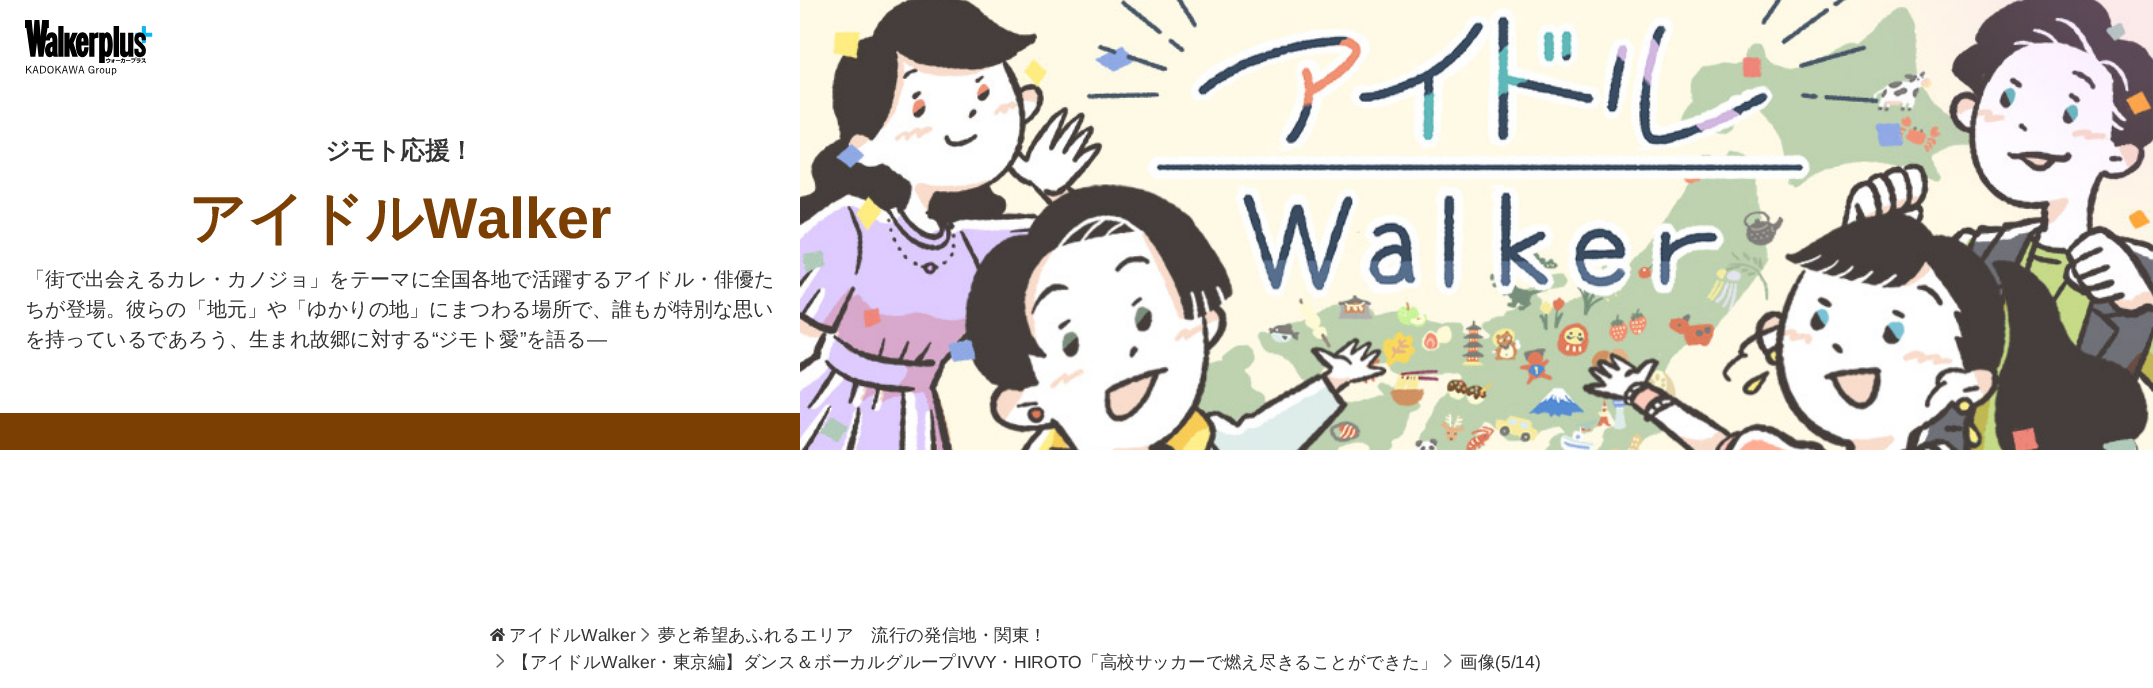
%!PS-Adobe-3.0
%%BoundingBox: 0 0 2153 688
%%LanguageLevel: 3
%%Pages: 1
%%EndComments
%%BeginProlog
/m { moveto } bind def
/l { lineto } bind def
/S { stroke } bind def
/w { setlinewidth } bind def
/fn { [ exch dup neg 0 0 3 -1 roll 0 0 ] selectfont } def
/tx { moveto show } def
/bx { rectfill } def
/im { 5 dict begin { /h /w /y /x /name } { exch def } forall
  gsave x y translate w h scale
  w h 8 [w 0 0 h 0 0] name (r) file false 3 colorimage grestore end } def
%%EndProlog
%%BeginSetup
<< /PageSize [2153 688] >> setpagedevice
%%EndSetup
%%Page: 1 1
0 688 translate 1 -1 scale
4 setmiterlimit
1 setgray
0 0 2153 688 bx
0.482 0.247 0.016 setrgbcolor
0 413 800 37 bx
(image0.raw) 25 20 128 56 im
/WenQuanYiZenHei-Bold 25 fn
0.2 setgray
325 159 m -0.5 0 (ジモト応援！) ashow
/WenQuanYiZenHei-Bold 57.5 fn
0.482 0.247 0.016 setrgbcolor
(アイドル) 188 238 tx
/LiberationSans-Bold 57.5 fn
(Walker) 423 238 tx
/WenQuanYiZenHei-Medium 20 fn
0.2 setgray
(「街で出会えるカレ・カノジョ」をテーマに全国各地で活躍するアイドル・俳優た) 25 286 tx
(ちが登場。彼らの「地元」や「ゆかりの地」にまつわる場所で、誰もが特別な思い) 25 316 tx
(を持っているであろう、生まれ故郷に対する) 25 346 tx
/LiberationSans-Regular 20 fn
(“) 432 346 tx
/WenQuanYiZenHei-Medium 20 fn
(ジモト愛) 438 346 tx
/LiberationSans-Regular 20 fn
(”) 520 346 tx
/WenQuanYiZenHei-Medium 20 fn
(を語る) 526 346 tx
/LiberationSans-Regular 20 fn
(―) 587 346 tx
(image1.raw) 800 0 1353 450 im
(image2.raw) 490 628 15 13 im
/WenQuanYiZenHei-Medium 17.5 fn
(アイドル) 509 641 tx
/LiberationSans-Regular 17.5 fn
(Walker) 581 641 tx
0.4 setgray
1.2 w
1 setlinecap
1 setlinejoin
642 628.5 m 648.5 634.5 l 642 641 l S
/WenQuanYiZenHei-Medium 17.5 fn
0.2 setgray
(夢と希望あふれるエリア　流行の発信地・関東！) 658 641 tx
0.4 setgray
497 654.5 m 503.5 661 l 497 667 l S
0.2 setgray
(【アイドル) 512 668 tx
/LiberationSans-Regular 17.5 fn
(Walker) 601 668 tx
/WenQuanYiZenHei-Medium 17.5 fn
(・東京編】ダンス＆ボーカルグループ) 655 668 tx
/LiberationSans-Regular 17.5 fn
(IVVY) 957 668 tx
/WenQuanYiZenHei-Medium 17.5 fn
(・) 996 668 tx
/LiberationSans-Regular 17.5 fn
(HIROTO) 1014 668 tx
/WenQuanYiZenHei-Medium 17.5 fn
(「高校サッカーで燃え尽きることができた」) 1082 668 tx
0.4 setgray
1444.5 654.5 m 1451 661 l 1444.5 667 l S
0.2 setgray
(画像) 1460 668 tx
/LiberationSans-Regular 17.5 fn
(\(5/14\)) 1495 668 tx
showpage
%%EOF
